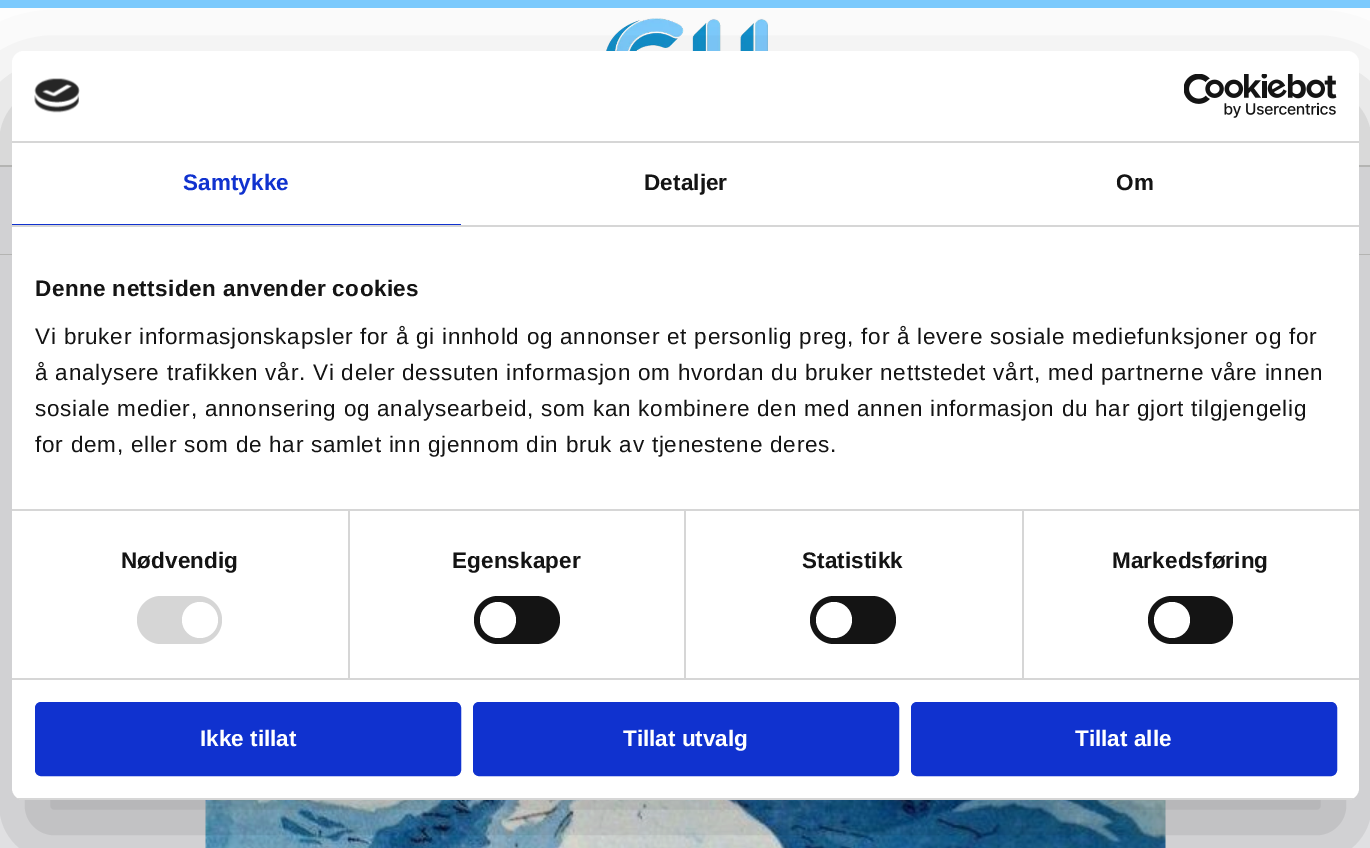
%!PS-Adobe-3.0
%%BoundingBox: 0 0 1370 848
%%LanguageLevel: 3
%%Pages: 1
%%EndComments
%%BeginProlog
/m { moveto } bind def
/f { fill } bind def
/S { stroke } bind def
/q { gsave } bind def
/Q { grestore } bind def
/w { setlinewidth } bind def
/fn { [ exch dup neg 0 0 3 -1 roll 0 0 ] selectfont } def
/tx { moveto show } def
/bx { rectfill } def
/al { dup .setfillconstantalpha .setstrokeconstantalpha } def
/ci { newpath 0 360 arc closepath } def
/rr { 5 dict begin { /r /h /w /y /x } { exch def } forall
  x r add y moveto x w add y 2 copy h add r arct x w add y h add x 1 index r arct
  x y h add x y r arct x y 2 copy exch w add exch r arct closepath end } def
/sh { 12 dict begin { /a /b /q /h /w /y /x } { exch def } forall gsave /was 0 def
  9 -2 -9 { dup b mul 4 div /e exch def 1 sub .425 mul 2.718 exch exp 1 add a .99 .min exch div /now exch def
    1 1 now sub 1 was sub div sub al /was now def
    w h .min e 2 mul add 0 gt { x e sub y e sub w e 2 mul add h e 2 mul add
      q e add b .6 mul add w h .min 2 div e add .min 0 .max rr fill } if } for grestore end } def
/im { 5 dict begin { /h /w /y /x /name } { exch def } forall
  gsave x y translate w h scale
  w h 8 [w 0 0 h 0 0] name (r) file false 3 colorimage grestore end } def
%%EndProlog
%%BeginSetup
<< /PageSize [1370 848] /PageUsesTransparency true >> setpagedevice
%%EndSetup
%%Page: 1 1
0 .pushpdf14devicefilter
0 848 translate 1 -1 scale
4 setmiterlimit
0.965 0.965 0.973 setrgbcolor
0 0 1370 848 bx
1 setgray
0 8 1370 157 bx
0.49 0.8 1 setrgbcolor
0 0 1370 8 bx
(image0.raw) 606 18 162 33 im
0.831 0.831 0.82 setrgbcolor
0 165 1370 2 bx
0 254 1370 1 bx
(image1.raw) 205 800 961 48 im
0 setgray
12 99 1347 749 12 51 0.3 sh
1 setgray
12 51 1347 749 12 rr f
0.839 setgray
12 141 1347 2 bx
(image2.raw) 34 78 46 35 im
(image3.raw) 1184 74 153 44 im
12 225 1347 2 bx
0.063 0.196 0.812 setrgbcolor
12 224 449 1 bx
/LiberationSans-Bold 22.5 fn
183 190 m 0.1 0 (Samtykke) ashow
0.078 setgray
644 190 m 0.1 0 (Detaljer) ashow
1116 190 m 0.1 0 (Om) ashow
0.839 setgray
348 510 2 168 bx
684 510 2 168 bx
1022 510 2 168 bx
12 509 1347 2 bx
0.078 setgray
35 296 m 0.4 0 (Denne nettsiden anvender cookies) ashow
/LiberationSans-Regular 22.5 fn
35 344 m 0.75 0 (Vi bruker informasjonskapsler for å gi innhold og annonser et personlig preg, for å levere sosiale mediefunksjoner og for) ashow
35 380 m 0.75 0 (å analysere trafikken vår. Vi deler dessuten informasjon om hvordan du bruker nettstedet vårt, med partnerne våre innen) ashow
35 416 m 0.75 0 (sosiale medier, annonsering og analysearbeid, som kan kombinere den med annen informasjon du har gjort tilgjengelig) ashow
35 452 m 0.75 0 (for dem, eller som de har samlet inn gjennom din bruk av tjenestene deres.) ashow
0.839 setgray
12 678 1347 2 bx
/LiberationSans-Bold 22.5 fn
0.078 setgray
121 568 m 0.1 0 (Nødvendig) ashow
0.839 setgray
137 596 85 48 24 rr f
1 setgray
200 620 18 ci f
0.078 setgray
452 568 m 0.1 0 (Egenskaper) ashow
474 596 86 48 24 rr f
1 setgray
498 620 18 ci f
0.078 setgray
802 568 m 0.1 0 (Statistikk) ashow
810 596 86 48 24 rr f
1 setgray
834 620 18 ci f
0.078 setgray
1112 568 m 0.1 0 (Markedsføring) ashow
1148 596 85 48 24 rr f
1 setgray
1172 620 18 ci f
q
12 51 1347 749 12 rr clip newpath
0.839 setgray
12 798 1347 2 bx
Q
0.063 0.196 0.812 setrgbcolor
36.5 703.5 423 71 4.5 rr q f Q
3 w
S
1 setgray
(Ikke tillat) 200 746 tx
0.063 0.196 0.812 setrgbcolor
474.5 703.5 423 71 4.5 rr q f Q
S
1 setgray
(Tillat utvalg) 623 746 tx
0.063 0.196 0.812 setrgbcolor
912.5 703.5 423 71 4.5 rr q f Q
S
1 setgray
(Tillat alle) 1075 746 tx
.poppdf14devicefilter showpage
%%EOF
